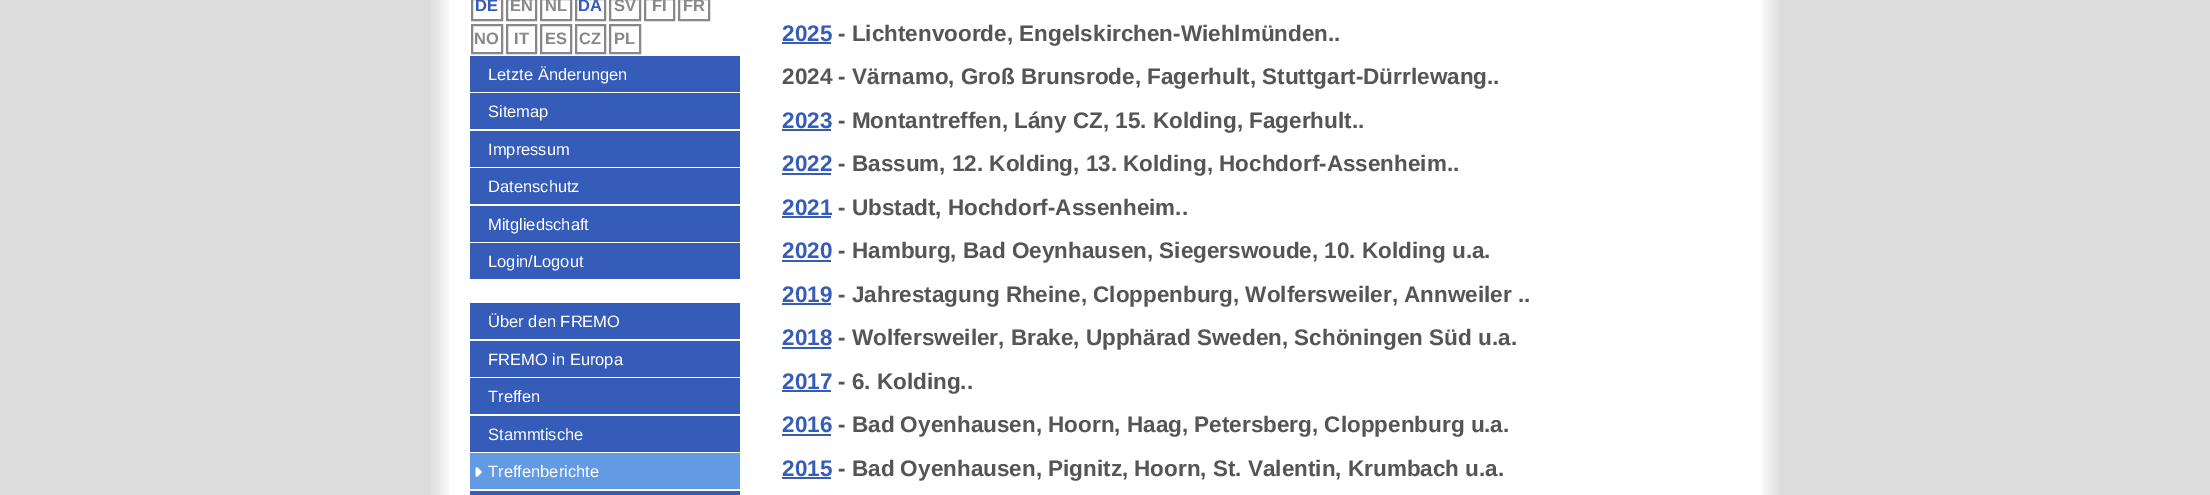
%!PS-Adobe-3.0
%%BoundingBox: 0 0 2210 495
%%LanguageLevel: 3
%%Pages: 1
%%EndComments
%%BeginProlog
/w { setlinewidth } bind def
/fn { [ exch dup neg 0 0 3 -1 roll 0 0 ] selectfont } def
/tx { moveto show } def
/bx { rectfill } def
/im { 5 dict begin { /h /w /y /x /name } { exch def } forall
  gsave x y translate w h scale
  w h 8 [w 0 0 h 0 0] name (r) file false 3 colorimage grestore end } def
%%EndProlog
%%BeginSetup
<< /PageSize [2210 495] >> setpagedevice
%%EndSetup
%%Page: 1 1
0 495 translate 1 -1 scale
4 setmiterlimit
0.863 setgray
0 0 2210 495 bx
(image0.raw) 431 0 1349 495 im
0.533 setgray
2 w
472 -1 30 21 rectstroke
/LiberationSans-Bold 16.5 fn
0.208 0.361 0.725 setrgbcolor
(DE) 475 11 tx
0.533 setgray
507 -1 29 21 rectstroke
(EN) 510 11 tx
541 -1 30 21 rectstroke
(NL) 545 11 tx
576 -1 29 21 rectstroke
0.208 0.361 0.725 setrgbcolor
(DA) 578 11 tx
0.533 setgray
610 -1 30 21 rectstroke
(SV) 614 11 tx
645 -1 29 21 rectstroke
(FI) 652 11 tx
679 -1 30 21 rectstroke
(FR) 683 11 tx
472 25 30 28 rectstroke
(NO) 474 44 tx
507 25 29 28 rectstroke
(IT) 514 44 tx
541 25 30 28 rectstroke
(ES) 545 44 tx
576 25 29 28 rectstroke
(CZ) 579 44 tx
610 25 30 28 rectstroke
(PL) 614 44 tx
0.208 0.361 0.725 setrgbcolor
470 56 270 36 bx
/LiberationSans-Regular 16.5 fn
1 setgray
(Letzte Änderungen) 488 80 tx
0.208 0.361 0.725 setrgbcolor
470 93 270 36 bx
1 setgray
(Sitemap) 488 117 tx
0.208 0.361 0.725 setrgbcolor
470 131 270 36 bx
1 setgray
(Impressum) 488 155 tx
0.208 0.361 0.725 setrgbcolor
470 168 270 36 bx
1 setgray
(Datenschutz) 488 192 tx
0.208 0.361 0.725 setrgbcolor
470 206 270 36 bx
1 setgray
(Mitgliedschaft) 488 230 tx
0.208 0.361 0.725 setrgbcolor
470 243 270 36 bx
1 setgray
(Login/Logout) 488 267 tx
0.208 0.361 0.725 setrgbcolor
470 303 270 36 bx
1 setgray
(Über den FREMO) 488 327 tx
0.208 0.361 0.725 setrgbcolor
470 341 270 36 bx
1 setgray
(FREMO in Europa) 488 365 tx
0.208 0.361 0.725 setrgbcolor
470 378 270 36 bx
1 setgray
(Treffen) 488 402 tx
0.208 0.361 0.725 setrgbcolor
470 416 270 36 bx
1 setgray
(Stammtische) 488 440 tx
0.384 0.604 0.894 setrgbcolor
470 453 270 36 bx
(image1.raw) 475 467 7 10 im
1 setgray
(Treffenberichte) 488 477 tx
0.208 0.361 0.725 setrgbcolor
470 491 270 4 bx
/LiberationSans-Bold 22.5 fn
(2025) 782 41 tx
782 42 49 2 bx
0.333 setgray
(- Lichtenvoorde, Engelskirchen-Wiehlmünden..) 838 41 tx
(2024 - Värnamo, Groß Brunsrode, Fagerhult, Stuttgart-Dürrlewang..) 782 84 tx
0.208 0.361 0.725 setrgbcolor
(2023) 782 128 tx
782 129 49 2 bx
0.333 setgray
(- Montantreffen, Lány CZ, 15. Kolding, Fagerhult..) 838 128 tx
0.208 0.361 0.725 setrgbcolor
(2022) 782 171 tx
782 173 49 2 bx
0.333 setgray
(- Bassum, 12. Kolding, 13. Kolding, Hochdorf-Assenheim..) 838 171 tx
0.208 0.361 0.725 setrgbcolor
(2021) 782 215 tx
782 216 49 2 bx
0.333 setgray
(- Ubstadt, Hochdorf-Assenheim..) 838 215 tx
0.208 0.361 0.725 setrgbcolor
(2020) 782 258 tx
782 260 49 2 bx
0.333 setgray
(- Hamburg, Bad Oeynhausen, Siegerswoude, 10. Kolding u.a.) 838 258 tx
0.208 0.361 0.725 setrgbcolor
(2019) 782 302 tx
782 303 49 2 bx
0.333 setgray
(- Jahrestagung Rheine, Cloppenburg, Wolfersweiler, Annweiler ..) 838 302 tx
0.208 0.361 0.725 setrgbcolor
(2018) 782 345 tx
782 347 49 2 bx
0.333 setgray
(- Wolfersweiler, Brake, Upphärad Sweden, Schöningen Süd u.a.) 838 345 tx
0.208 0.361 0.725 setrgbcolor
(2017) 782 389 tx
782 390 49 2 bx
0.333 setgray
(- 6. Kolding..) 838 389 tx
0.208 0.361 0.725 setrgbcolor
(2016) 782 432 tx
782 434 49 2 bx
0.333 setgray
(- Bad Oyenhausen, Hoorn, Haag, Petersberg, Cloppenburg u.a.) 838 432 tx
0.208 0.361 0.725 setrgbcolor
(2015) 782 476 tx
782 477 49 2 bx
0.333 setgray
(- Bad Oyenhausen, Pignitz, Hoorn, St. Valentin, Krumbach u.a.) 838 476 tx
showpage
%%EOF
